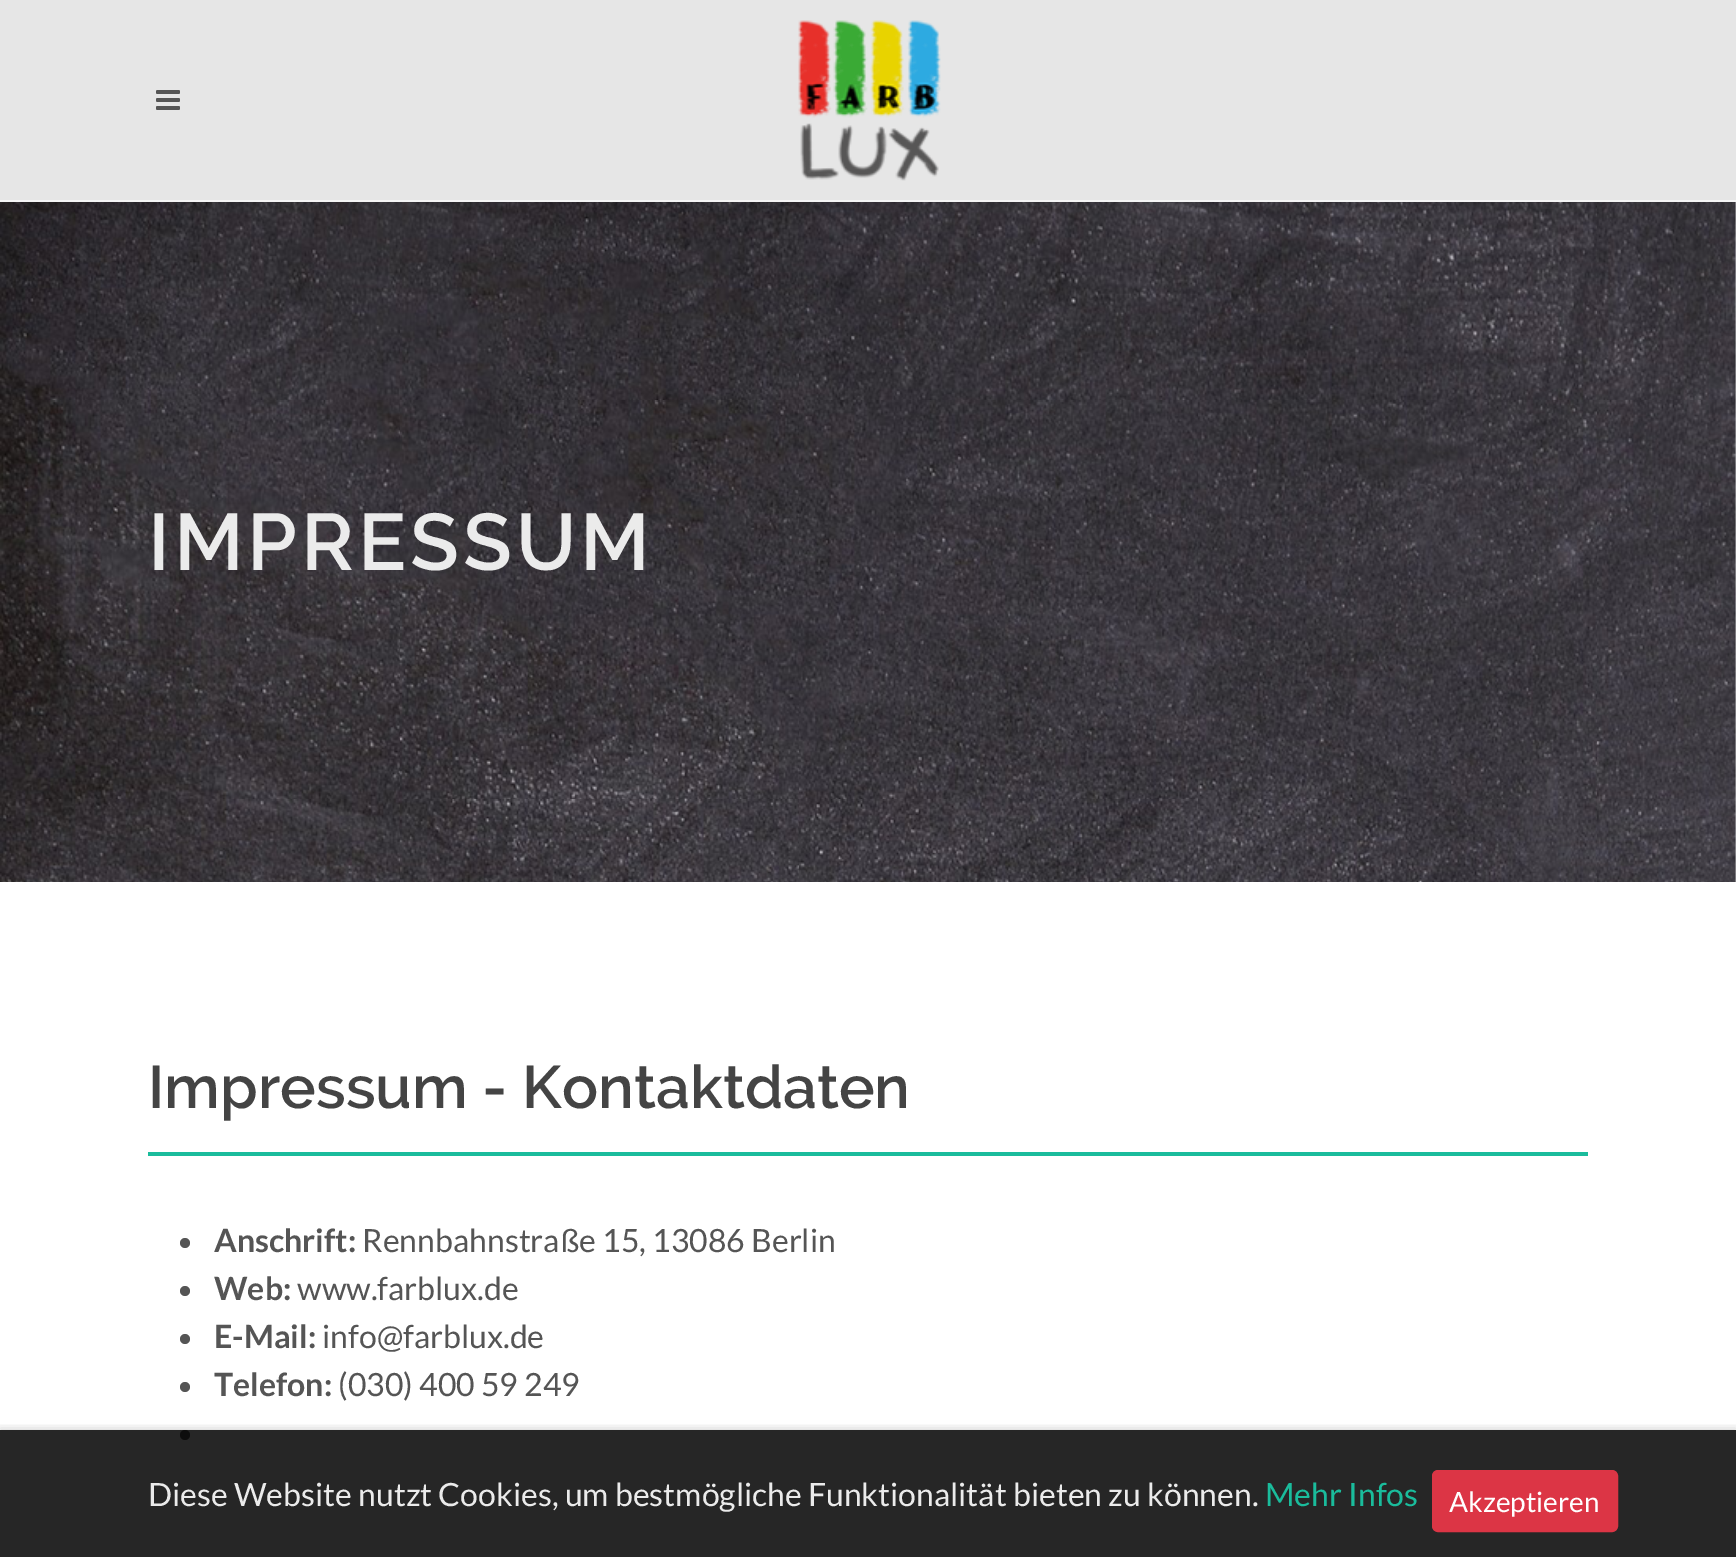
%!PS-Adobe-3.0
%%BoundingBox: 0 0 1736 1557
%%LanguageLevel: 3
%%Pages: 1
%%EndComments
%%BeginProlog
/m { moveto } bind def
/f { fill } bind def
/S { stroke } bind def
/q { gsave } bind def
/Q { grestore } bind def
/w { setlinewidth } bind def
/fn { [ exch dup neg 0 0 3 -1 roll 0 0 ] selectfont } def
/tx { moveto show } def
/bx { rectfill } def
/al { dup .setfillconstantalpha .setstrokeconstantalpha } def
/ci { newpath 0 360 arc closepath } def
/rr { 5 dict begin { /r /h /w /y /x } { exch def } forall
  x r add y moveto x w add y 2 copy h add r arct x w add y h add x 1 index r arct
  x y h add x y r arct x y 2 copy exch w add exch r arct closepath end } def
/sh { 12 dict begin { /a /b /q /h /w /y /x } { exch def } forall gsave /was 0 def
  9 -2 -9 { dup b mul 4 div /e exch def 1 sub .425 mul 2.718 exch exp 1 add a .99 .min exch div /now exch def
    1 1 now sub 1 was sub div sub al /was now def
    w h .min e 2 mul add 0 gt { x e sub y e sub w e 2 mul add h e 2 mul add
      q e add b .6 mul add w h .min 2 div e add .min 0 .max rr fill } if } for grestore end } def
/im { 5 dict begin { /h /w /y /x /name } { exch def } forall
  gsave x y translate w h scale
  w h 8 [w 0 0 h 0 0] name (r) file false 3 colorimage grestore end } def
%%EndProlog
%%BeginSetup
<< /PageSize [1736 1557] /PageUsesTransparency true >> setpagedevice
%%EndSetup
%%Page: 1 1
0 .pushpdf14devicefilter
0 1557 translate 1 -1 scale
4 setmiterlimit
1 setgray
0 0 1736 1557 bx
0.961 setgray
0 200 1736 2 bx
0.902 setgray
0 0 1736 200 bx
(image0.raw) 156 90 24 20 im
(image1.raw) 798 20 143 161 im
(image2.raw) 0 202 1736 680 im
/Raleway-SemiBold 80 fn
0.922 setgray
148 570 m 4 0 (IMPRESSUM) ashow
0.102 0.737 0.612 setrgbcolor
148 1152 1440 4 bx
/Raleway-SemiBold 60 fn
0.267 setgray
(Impressum - Kontaktdaten) 148 1108 tx
0.333 setgray
185 1243 5 ci f
/Lato-Bold 32 fn
(Anschrift:) 214 1252 tx
/Lato-Regular 32 fn
(Rennbahnstraße 15, 13086 Berlin) 362 1252 tx
185 1291 5 ci f
/Lato-Bold 32 fn
(Web:) 214 1300 tx
/Lato-Regular 32 fn
(www.farblux.de) 297 1300 tx
185 1339 5 ci f
/Lato-Bold 32 fn
(E-Mail:) 214 1348 tx
/Lato-Regular 32 fn
(info@farblux.de) 322 1348 tx
185 1387 5 ci f
/Lato-Bold 32 fn
(Telefon:) 214 1396 tx
/Lato-Regular 32 fn
(\(030\) 400 59 249) 338 1396 tx
185 1435 5 ci f
q
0 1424 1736 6 rectclip
0 setgray
0 1428 1736 128 0 4 0.15 sh
Q
0.85 al
0 setgray
0 1430 1736 127 bx
1 al
0.922 setgray
(Diese Website nutzt Cookies, um bestmögliche Funktionalität bieten zu können.) 148 1506 tx
0.102 0.737 0.612 setrgbcolor
(Mehr Infos) 1265 1506 tx
0.863 0.208 0.271 setrgbcolor
1433 1471 184 60 5 rr q f Q
2 w
S
/Lato-Regular 28 fn
1 setgray
(Akzeptieren) 1449 1512 tx
.poppdf14devicefilter showpage
%%EOF
